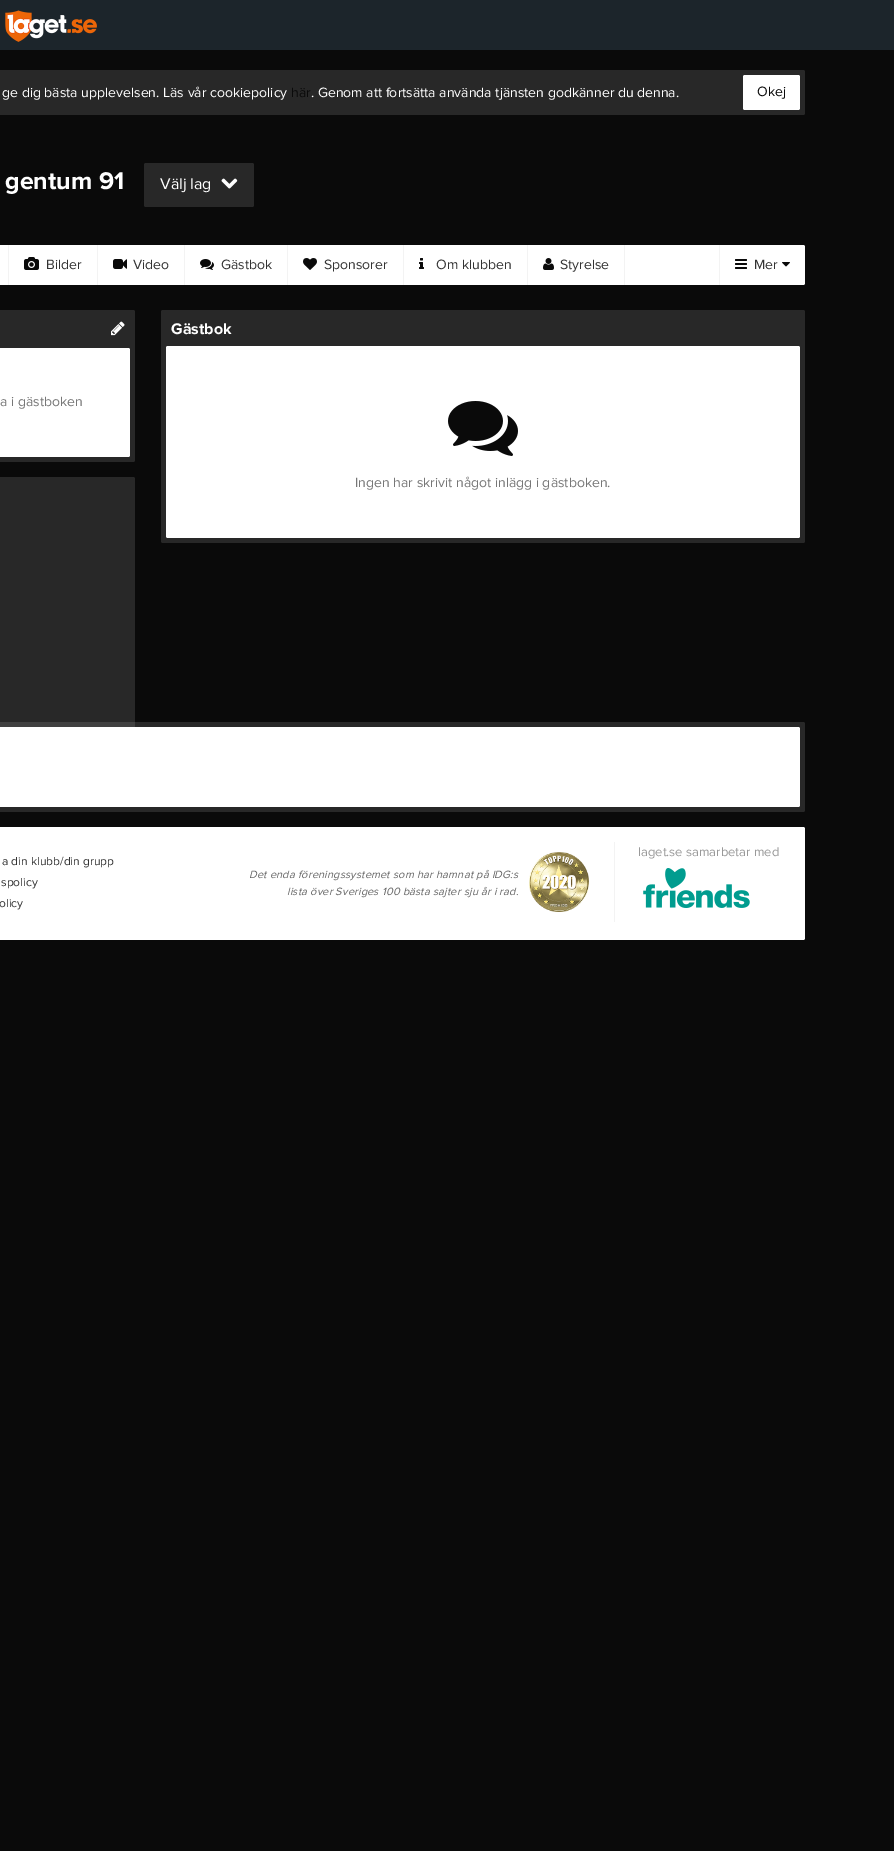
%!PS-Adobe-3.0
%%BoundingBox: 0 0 894 1851
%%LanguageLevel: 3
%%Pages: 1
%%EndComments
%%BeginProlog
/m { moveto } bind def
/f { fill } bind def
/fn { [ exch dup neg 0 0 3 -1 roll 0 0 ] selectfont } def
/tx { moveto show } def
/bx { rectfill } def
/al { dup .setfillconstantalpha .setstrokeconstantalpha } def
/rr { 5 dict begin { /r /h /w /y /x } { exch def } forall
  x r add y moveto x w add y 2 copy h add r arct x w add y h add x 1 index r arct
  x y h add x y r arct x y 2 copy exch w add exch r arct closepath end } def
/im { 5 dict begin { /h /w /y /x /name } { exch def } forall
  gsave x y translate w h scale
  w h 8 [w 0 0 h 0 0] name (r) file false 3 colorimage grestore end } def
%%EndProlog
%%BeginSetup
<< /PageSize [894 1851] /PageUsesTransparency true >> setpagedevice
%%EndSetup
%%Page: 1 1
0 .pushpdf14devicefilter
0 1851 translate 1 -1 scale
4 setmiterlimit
0.039 setgray
0 0 894 1851 bx
0.11 0.145 0.169 setrgbcolor
0 0 894 50 bx
(image0.raw) 5 10 92 32 im
0.157 setgray
-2 70 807 45 2 rr f
/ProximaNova-Regular 14 fn
1 setgray
(ge dig bästa upplevelsen. Läs vår cookiepolicy) 2 97 tx
0.039 setgray
(här) 291 97 tx
1 setgray
(. Genom att fortsätta använda tjänsten godkänner du denna.) 311 97 tx
743 75 57 35 2 rr f
0.039 setgray
(Okej) 757 96 tx
/ProximaNova-Bold 25 fn
1 setgray
(gentum 91) 5 189 tx
0.157 setgray
144 163 110 44 2 rr f
/ProximaNova-Regular 16 fn
1 setgray
(Välj lag) 160 189 tx
(image1.raw) 221 178 17 11 im
-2 245 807 40 2 rr f
0.953 setgray
8 245 1 40 bx
97 245 1 40 bx
(image2.raw) 24 257 15 13 im
/ProximaNova-Regular 14 fn
0.2 setgray
(Bilder) 46 269 tx
0.953 setgray
184 245 1 40 bx
(image3.raw) 113 259 14 10 im
0.2 setgray
(Video) 133 269 tx
0.953 setgray
287 245 1 40 bx
(image4.raw) 200 259 14 11 im
0.2 setgray
(Gästbok) 221 269 tx
0.953 setgray
403 245 1 40 bx
(image5.raw) 303 258 14 12 im
0.2 setgray
(Sponsorer) 324 269 tx
0.953 setgray
527 245 1 40 bx
(image6.raw) 419 258 5 11 im
0.2 setgray
(Om klubben) 436 269 tx
0.953 setgray
624 245 1 40 bx
(image7.raw) 543 258 11 12 im
0.2 setgray
(Styrelse) 560 269 tx
0.953 setgray
719 245 1 40 bx
(image8.raw) 735 259 12 10 im
0.2 setgray
(Mer) 754 269 tx
(image9.raw) 782 262 8 5 im
0.157 setgray
-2 310 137 152 2 rr f
(image10.raw) 111 321 14 15 im
1 setgray
-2 348 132 109 2 rr f
0.467 setgray
(a i gästboken) 0 406 tx
0.157 setgray
-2 722 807 90 2 rr f
0.2 al
0.62 setgray
-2 477 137 260 2 rr f
1 al
0.157 setgray
161 310 644 233 2 rr f
/ProximaNova-Bold 16 fn
1 setgray
(Gästbok) 171 334 tx
166 346 634 192 2 rr f
(image11.raw) 448 401 70 55 im
/ProximaNova-Regular 14 fn
0.467 setgray
(Ingen har skrivit något inlägg i gästboken.) 355 487 tx
1 setgray
-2 727 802 80 2 rr f
-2 827 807 113 2 rr f
/ProximaNova-Regular 13 fn
0.6 setgray
(laget.se samarbetar med) 638 856 tx
(image12.raw) 643 868 107 40 im
/ProximaNova-Regular 12 fn
0.2 setgray
(a din klubb/din grupp) 2 865 tx
(spolicy) 1 886 tx
(olicy) -1 907 tx
0.953 setgray
614 842 1 80 bx
/ProximaNova-Italic 11 fn
0.4 setgray
249 878 m 0.2 0 (Det enda föreningssystemet som har hamnat på IDG:s) ashow
287 895 m 0.2 0 (lista över Sveriges 100 bästa sajter sju år i rad.) ashow
(image13.raw) 529 852 60 60 im
.poppdf14devicefilter showpage
%%EOF
